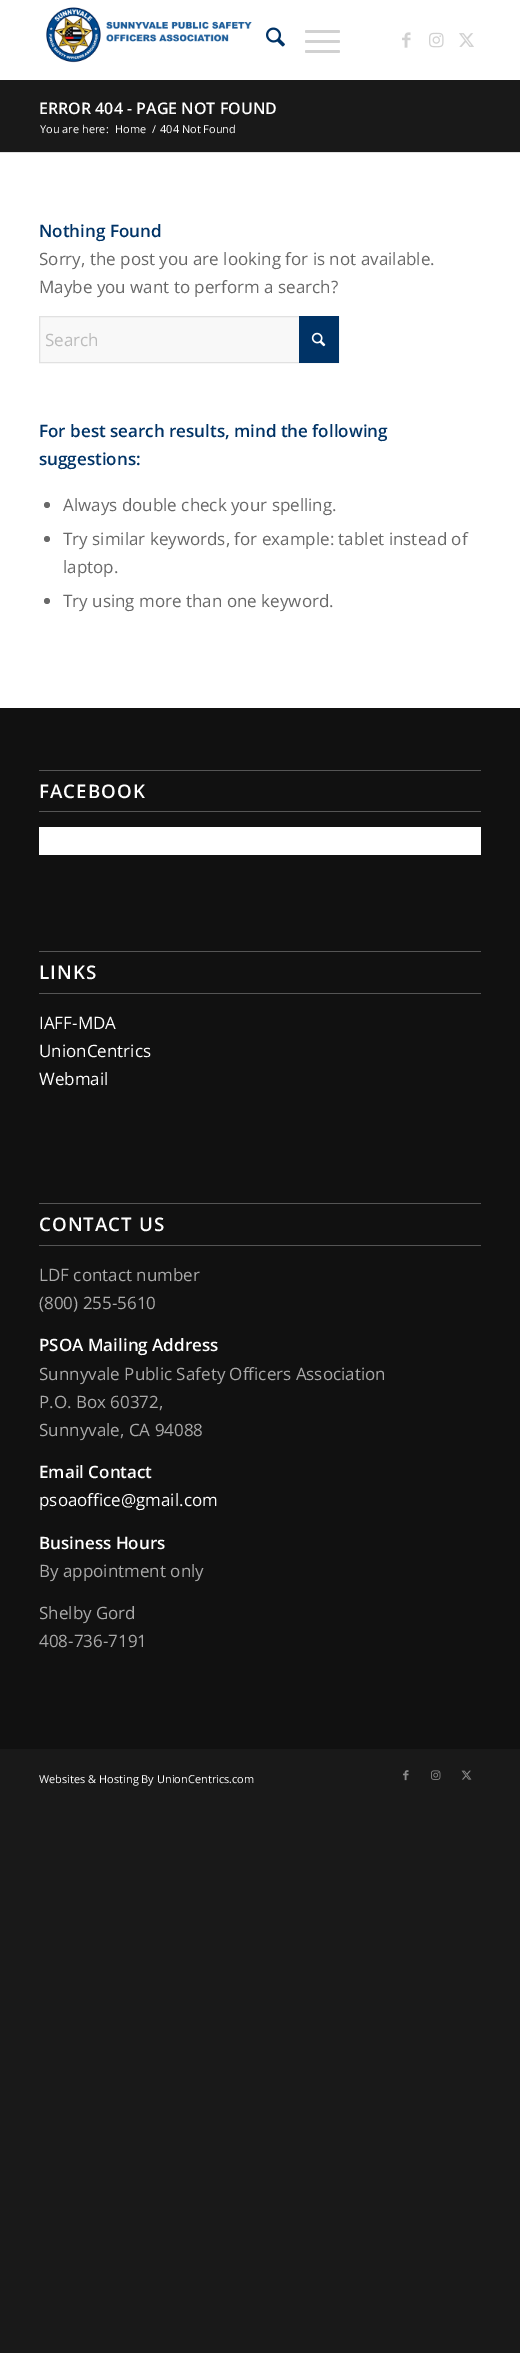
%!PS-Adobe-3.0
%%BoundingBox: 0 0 520 2353
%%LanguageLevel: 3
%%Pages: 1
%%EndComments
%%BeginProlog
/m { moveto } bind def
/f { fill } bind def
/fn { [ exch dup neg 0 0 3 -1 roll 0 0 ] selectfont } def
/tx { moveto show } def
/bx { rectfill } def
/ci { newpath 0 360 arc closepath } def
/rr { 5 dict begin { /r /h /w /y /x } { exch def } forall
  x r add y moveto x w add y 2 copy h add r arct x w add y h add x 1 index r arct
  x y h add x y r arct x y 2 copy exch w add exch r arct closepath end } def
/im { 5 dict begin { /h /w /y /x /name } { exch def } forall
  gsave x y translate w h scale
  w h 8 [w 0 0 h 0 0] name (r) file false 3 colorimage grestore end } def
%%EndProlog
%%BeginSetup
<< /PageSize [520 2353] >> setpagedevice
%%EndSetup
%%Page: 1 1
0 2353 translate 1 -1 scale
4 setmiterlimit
0.098 setgray
0 0 520 2353 bx
1 setgray
0 0 520 708 bx
(image0.raw) 46 7 206 56 im
(image1.raw) 266 27 19 20 im
0.82 setgray
305 40 35 3 1.5 rr f
305 30 35 3 1.5 rr f
305 50 35 3 1.5 rr f
(image2.raw) 402 32 9 16 im
(image3.raw) 429 32 15 16 im
(image4.raw) 459 33 15 14 im
0.098 setgray
0 80 520 72 bx
/OpenSans-SemiBold 16 fn
1 setgray
(ERROR 404 - PAGE NOT FOUND) 39 114 tx
/OpenSans-Regular 11 fn
(You are here:) 40 133 tx
(Home) 115 133 tx
(/) 152 133 tx
(404 Not Found) 160 133 tx
0.882 setgray
0 152 520 1 bx
/OpenSans-SemiBold 17 fn
0 0.2 0.4 setrgbcolor
(Nothing Found) 39 237 tx
/OpenSans-Regular 17 fn
0.412 setgray
(Sorry, the post you are looking for is not available.) 39 265 tx
(Maybe you want to perform a search?) 39 293 tx
0.973 setgray
40 317 259 45 bx
0.882 setgray
39.5 316.5 299 46 rectstroke
0 0.2 0.4 setrgbcolor
299 316 40 47 bx
0.733 setgray
(Search) 45 346 tx
(image5.raw) 311 332 15 15 im
/OpenSans-SemiBold 17 fn
0 0.2 0.4 setrgbcolor
(For best search results, mind the following) 39 437 tx
(suggestions:) 39 465 tx
0.412 setgray
47 505 3 ci f
/OpenSans-Regular 17 fn
(Always double check your spelling.) 63 511 tx
47 539 3 ci f
(Try similar keywords, for example: tablet instead of) 63 545 tx
(laptop.) 63 573 tx
47 601 3 ci f
(Try using more than one keyword.) 63 607 tx
0.067 setgray
0 708 520 1041 bx
0.333 setgray
39 770 442 1 bx
39 811 442 1 bx
/OpenSans-SemiBold 18.75 fn
1 setgray
39 798 m 1 0 (FACEBOOK) ashow
39 827 442 28 bx
0.333 setgray
39 951 442 1 bx
39 993 442 1 bx
1 setgray
39 979 m 1 0 (LINKS) ashow
/OpenSans-Regular 17 fn
(IAFF-MDA) 39 1029 tx
(UnionCentrics) 39 1057 tx
(Webmail) 39 1085 tx
0.333 setgray
39 1203 442 1 bx
39 1245 442 1 bx
/OpenSans-SemiBold 18.75 fn
1 setgray
39 1231 m 1 0 (CONTACT US) ashow
/OpenSans-Regular 17 fn
0.667 setgray
(LDF contact number) 39 1281 tx
(\(800\) 255-5610) 39 1309 tx
/OpenSans-SemiBold 17 fn
1 setgray
(PSOA Mailing Address) 39 1351 tx
/OpenSans-Regular 17 fn
0.667 setgray
(Sunnyvale Public Safety Officers Association) 39 1380 tx
(P.O. Box 60372,) 39 1408 tx
(Sunnyvale, CA 94088) 39 1436 tx
/OpenSans-SemiBold 17 fn
1 setgray
(Email Contact) 39 1478 tx
/OpenSans-Regular 17 fn
(psoaoffice@gmail.com) 39 1506 tx
/OpenSans-SemiBold 17 fn
(Business Hours) 39 1549 tx
/OpenSans-Regular 17 fn
0.667 setgray
(By appointment only) 39 1577 tx
(Shelby Gord) 39 1619 tx
(408-736-7191) 39 1647 tx
/OpenSans-Regular 11 fn
1 setgray
(Websites & Hosting By UnionCentrics.com) 39 1783 tx
(image6.raw) 403 1770 6 11 im
(image7.raw) 431 1770 10 10 im
(image8.raw) 461 1770 11 10 im
showpage
%%EOF
